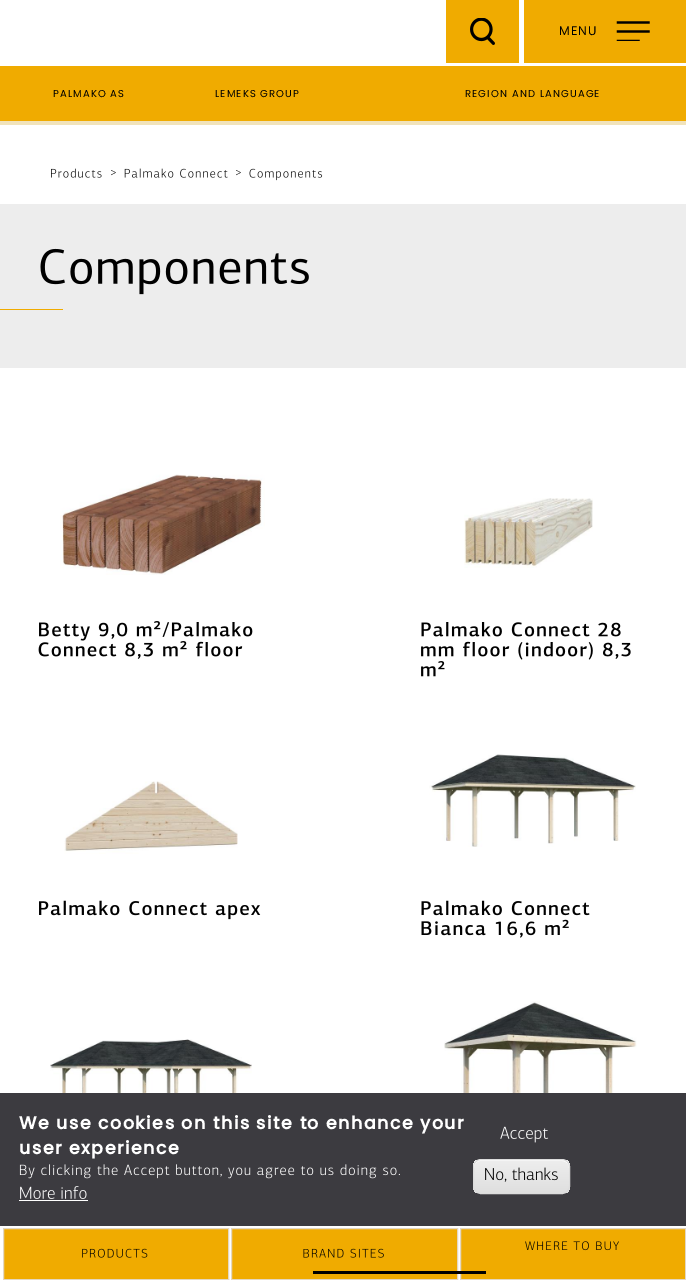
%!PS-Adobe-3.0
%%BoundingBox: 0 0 686 1280
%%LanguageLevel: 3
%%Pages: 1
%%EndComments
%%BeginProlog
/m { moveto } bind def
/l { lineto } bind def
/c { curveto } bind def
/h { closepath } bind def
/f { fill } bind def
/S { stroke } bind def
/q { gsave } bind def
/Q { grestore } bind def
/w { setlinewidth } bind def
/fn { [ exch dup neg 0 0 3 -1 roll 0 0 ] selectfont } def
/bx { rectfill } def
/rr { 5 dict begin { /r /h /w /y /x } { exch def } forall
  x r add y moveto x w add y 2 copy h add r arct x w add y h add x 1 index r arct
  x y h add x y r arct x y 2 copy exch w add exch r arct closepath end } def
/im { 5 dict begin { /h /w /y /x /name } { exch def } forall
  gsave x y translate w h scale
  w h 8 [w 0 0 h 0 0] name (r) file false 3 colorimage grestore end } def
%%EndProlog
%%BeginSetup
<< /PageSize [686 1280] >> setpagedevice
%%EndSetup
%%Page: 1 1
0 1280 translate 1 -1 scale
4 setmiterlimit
1 setgray
0 0 686 1280 bx
0.941 0.671 0 setrgbcolor
446 0 73 63 bx
(image0.raw) 470 18 25 27 im
524 0 162 63 bx
/Poppins-Regular 12.5 fn
0 setgray
559 35 m 1.1 0 (MENU) ashow
q
616 21 34 20 rectclip
2.3 w
2 setlinecap
618 22.5 m 648.5 22.5 l 618 31.5 m 648.5 31.5 l 618 41 m 638.5 41 l S
Q
0.941 0.671 0 setrgbcolor
0 66 686 55 bx
/Poppins-Regular 10 fn
0 setgray
53 97 m 1.1 0 (PALMAKO AS) ashow
0.945 0.89 0.733 setrgbcolor
0 121 686 4 bx
0 setgray
215 97 m 1.1 0 (LEMEKS GROUP) ashow
465 97 m 1.1 0 (REGION AND LANGUAGE) ashow
(image1.raw) 51 168 51 10 im
(image2.raw) 111 170 5 6 im
(image3.raw) 124 168 104 10 im
(image2.raw) 236 170 5 6 im
(image4.raw) 249 168 74 13 im
0.929 setgray
0 204 686 164 bx
(image5.raw) 40 248 269 47 im
0.941 0.671 0 setrgbcolor
0 309 63 1 bx
(image6.raw) 60 474 205 101 im
(image7.raw) 39 621 214 20 im
(image8.raw) 38 641 205 18 im
(image9.raw) 464 498 129 70 im
(image10.raw) 421 622 200 15 im
(image11.raw) 421 641 210 19 im
(image12.raw) 421 661 24 16 im
(image13.raw) 64 781 174 73 im
(image14.raw) 39 900 222 20 im
(image15.raw) 429 754 207 93 im
(image16.raw) 421 900 169 16 im
(image17.raw) 421 919 148 19 im
(image18.raw) 50 1039 202 54 im
(image19.raw) 444 1001 193 92 im
(image20.raw) 229 1268 1 12 im
3.5 1228.5 m 228.5 1228.5 l 228.5 1279.5 l 3.5 1279.5 l h q f Q
0.89 0.843 0.765 setrgbcolor
S
(image21.raw) 82 1248 66 10 im
0.941 0.671 0 setrgbcolor
231.5 1228.5 m 457.5 1228.5 l 457.5 1279.5 l 231.5 1279.5 l h q f Q
0.89 0.843 0.765 setrgbcolor
S
(image22.raw) 303 1248 81 10 im
0.941 0.671 0 setrgbcolor
460.5 1228.5 m 685.5 1228.5 l 685.5 1279.5 l 460.5 1279.5 l h q f Q
0.89 0.843 0.765 setrgbcolor
S
(image23.raw) 525 1241 94 10 im
0 setgray
313 1271 173 3 bx
0.235 0.231 0.251 setrgbcolor
0 1093 686 133 bx
/Poppins-Bold 17.5 fn
1 setgray
19 1129 m 1.45 0 (We use cookies on this site to enhance your) ashow
19 1154 m 1.45 0 (user experience) ashow
(image24.raw) 19 1164 381 15 im
(image25.raw) 20 1186 67 13 im
19 1200 69 1 bx
(image26.raw) 500 1126 49 17 im
q
473 1159 97 35 8 rr clip newpath
q 473 1160 m 570 1160 l 570 1193 l 473 1193 l h clip newpath
<< /ShadingType 2 /ColorSpace /DeviceRGB /Coords [521 1160 521 1193] /Extend [true true] /Function << /FunctionType 3 /Domain [0 1] /Functions [<< /FunctionType 2 /Domain [0 1] /C0 [0.929 0.929 0.929] /C1 [0.929 0.929 0.929] /N 1 >> << /FunctionType 2 /Domain [0 1] /C0 [0.929 0.929 0.929] /C1 [0.875 0.875 0.875] /N 1 >>] /Bounds [0.05] /Encode [0 1 0 1] >> >> shfill Q
Q
480 1161 m 562 1161 l 566 1161 569 1164 569 1168 c 569 1156 558 1160 549 1160 c 494 1160 l 485 1160 474 1156 474 1168 c 474 1164 477 1161 480 1161 c h f
0.863 setgray
473.5 1159.5 96 34 7.5 rr S
(image27.raw) 485 1167 73 15 im
showpage
%%EOF
